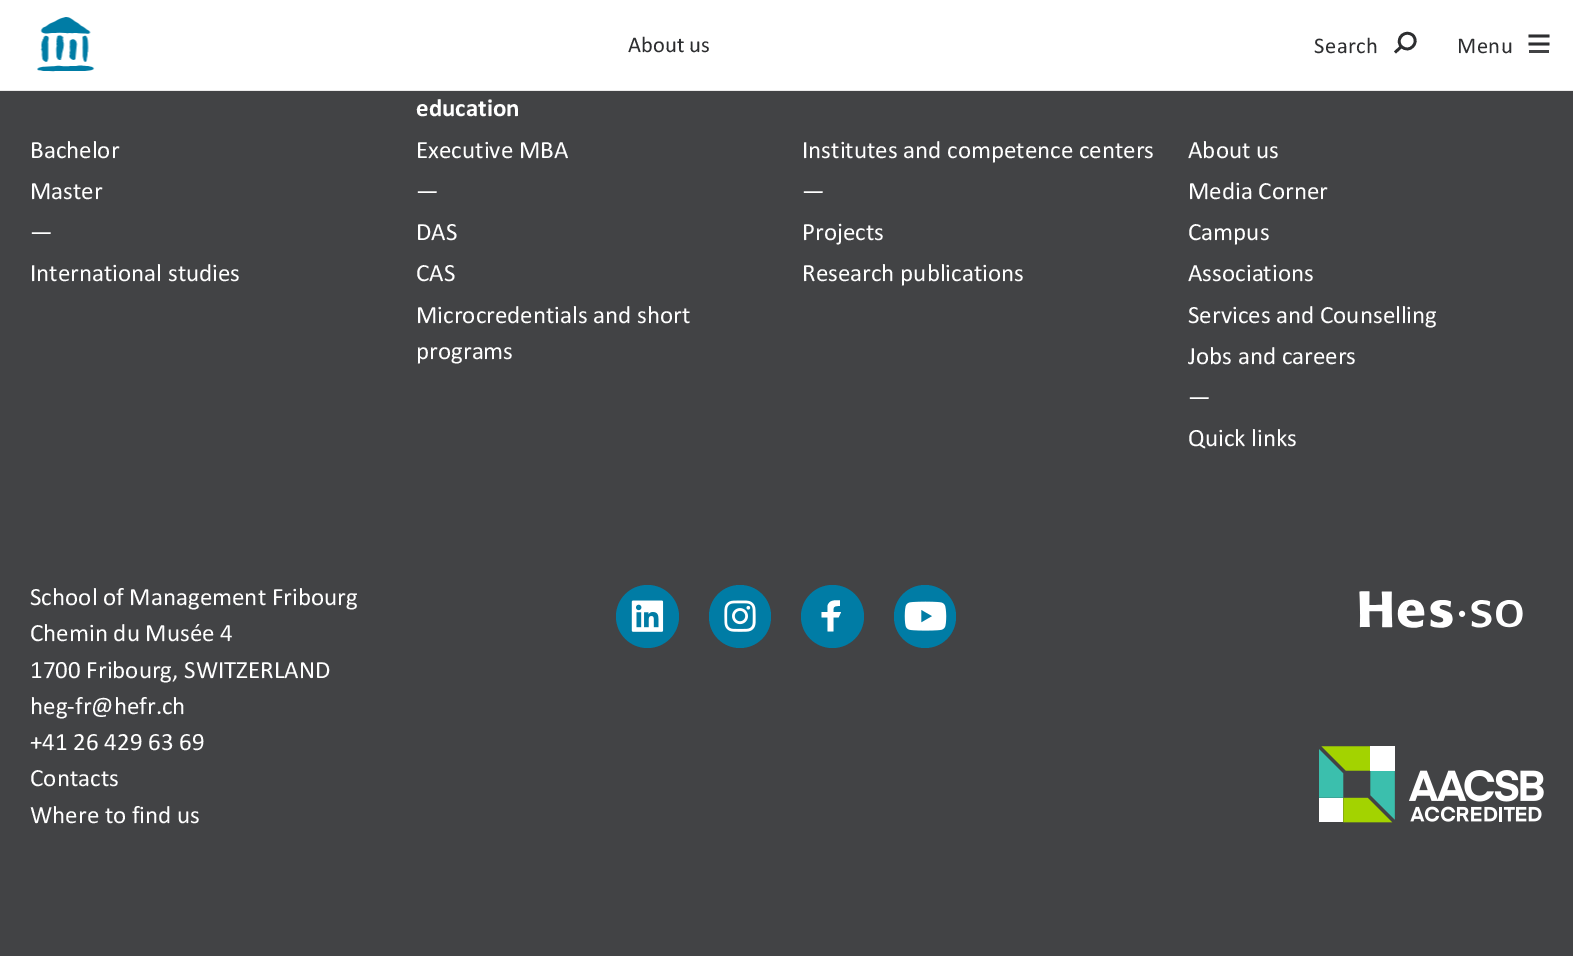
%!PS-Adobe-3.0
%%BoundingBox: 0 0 1573 956
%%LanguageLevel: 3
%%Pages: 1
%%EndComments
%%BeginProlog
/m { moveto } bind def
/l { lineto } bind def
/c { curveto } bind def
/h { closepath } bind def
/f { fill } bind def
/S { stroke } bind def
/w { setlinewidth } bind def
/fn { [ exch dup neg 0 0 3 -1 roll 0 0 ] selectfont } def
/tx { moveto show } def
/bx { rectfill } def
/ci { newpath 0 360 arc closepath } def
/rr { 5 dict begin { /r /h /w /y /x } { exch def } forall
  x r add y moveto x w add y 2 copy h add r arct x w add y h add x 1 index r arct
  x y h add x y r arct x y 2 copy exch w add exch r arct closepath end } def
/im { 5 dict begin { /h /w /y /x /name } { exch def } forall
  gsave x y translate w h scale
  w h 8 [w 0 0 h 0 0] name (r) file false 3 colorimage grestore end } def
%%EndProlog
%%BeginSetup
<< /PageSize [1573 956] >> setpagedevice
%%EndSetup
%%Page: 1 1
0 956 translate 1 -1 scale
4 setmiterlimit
0.259 0.263 0.271 setrgbcolor
0 0 1573 956 bx
1 setgray
0 0 1573 90 bx
0.918 setgray
0 90 1573 1 bx
(image0.raw) 37 17 58 55 im
/Calibri-Regular 22.5 fn
0.176 0.18 0.188 setrgbcolor
(About us) 628 52 tx
1314 53 m 0.5 0 (Search) ashow
2.7 w
2 setlinecap
1401.5 46.5 m 1409 54 1420 43 1413 35.5 c 1406 29 1395.5 37.5 1400.5 45.5 c 1401.5 46.5 m 1396 51.5 l S
1457 53 m 0.5 0 (Menu) ashow
1548 36 m 1530 36 l 1548 44 m 1530 44 l S
0.259 0.263 0.271 setrgbcolor
1529 50 20 3 bx
/Calibri-Regular 25 fn
1 setgray
(Bachelor) 30 158 tx
(Master) 30 199 tx
(—) 30 240 tx
(International studies) 30 281 tx
/Calibri-Bold 25 fn
(education) 416 116 tx
/Calibri-Regular 25 fn
(Executive MBA) 416 158 tx
(—) 416 199 tx
(DAS) 416 240 tx
(CAS) 416 281 tx
(Microcredentials and short) 416 323 tx
(programs) 416 359 tx
(Institutes and competence centers) 802 158 tx
(—) 802 199 tx
(Projects) 802 240 tx
(Research publications) 802 281 tx
(About us) 1188 158 tx
(Media Corner) 1188 199 tx
(Campus) 1188 240 tx
(Associations) 1188 281 tx
(Services and Counselling) 1188 323 tx
(Jobs and careers) 1188 364 tx
(—) 1188 405 tx
(Quick links) 1188 446 tx
(School of Management Fribourg) 30 605 tx
(Chemin du Musée 4) 30 641 tx
(1700 Fribourg, SWITZERLAND) 30 678 tx
(heg-fr@hefr.ch) 30 714 tx
(+41 26 429 63 69) 30 750 tx
(Contacts) 30 786 tx
(Where to find us) 30 823 tx
0 0.486 0.647 setrgbcolor
647.5 616.5 31.5 ci f
(image1.raw) 631 600 33 32 im
709 585 62 63 31 rr f
(image2.raw) 724 600 32 32 im
832.5 616.5 31.5 ci f
1 setgray
833.5 631.5 m 827.5 631.5 l 827.5 606.5 l 828.5 600 835 600 840 600.5 c 840 606 l 837.5 606 833.5 605.5 833.5 609 c h f
821.5 612 m 821.5 617.5 l 838.5 617.5 l 841 612 l h f
0 0.486 0.647 setrgbcolor
894 585 62 63 31 rr f
(image3.raw) 904 601 43 30 im
(image4.raw) 1359 591 164 37 im
(image5.raw) 1319 746 225 77 im
showpage
%%EOF
